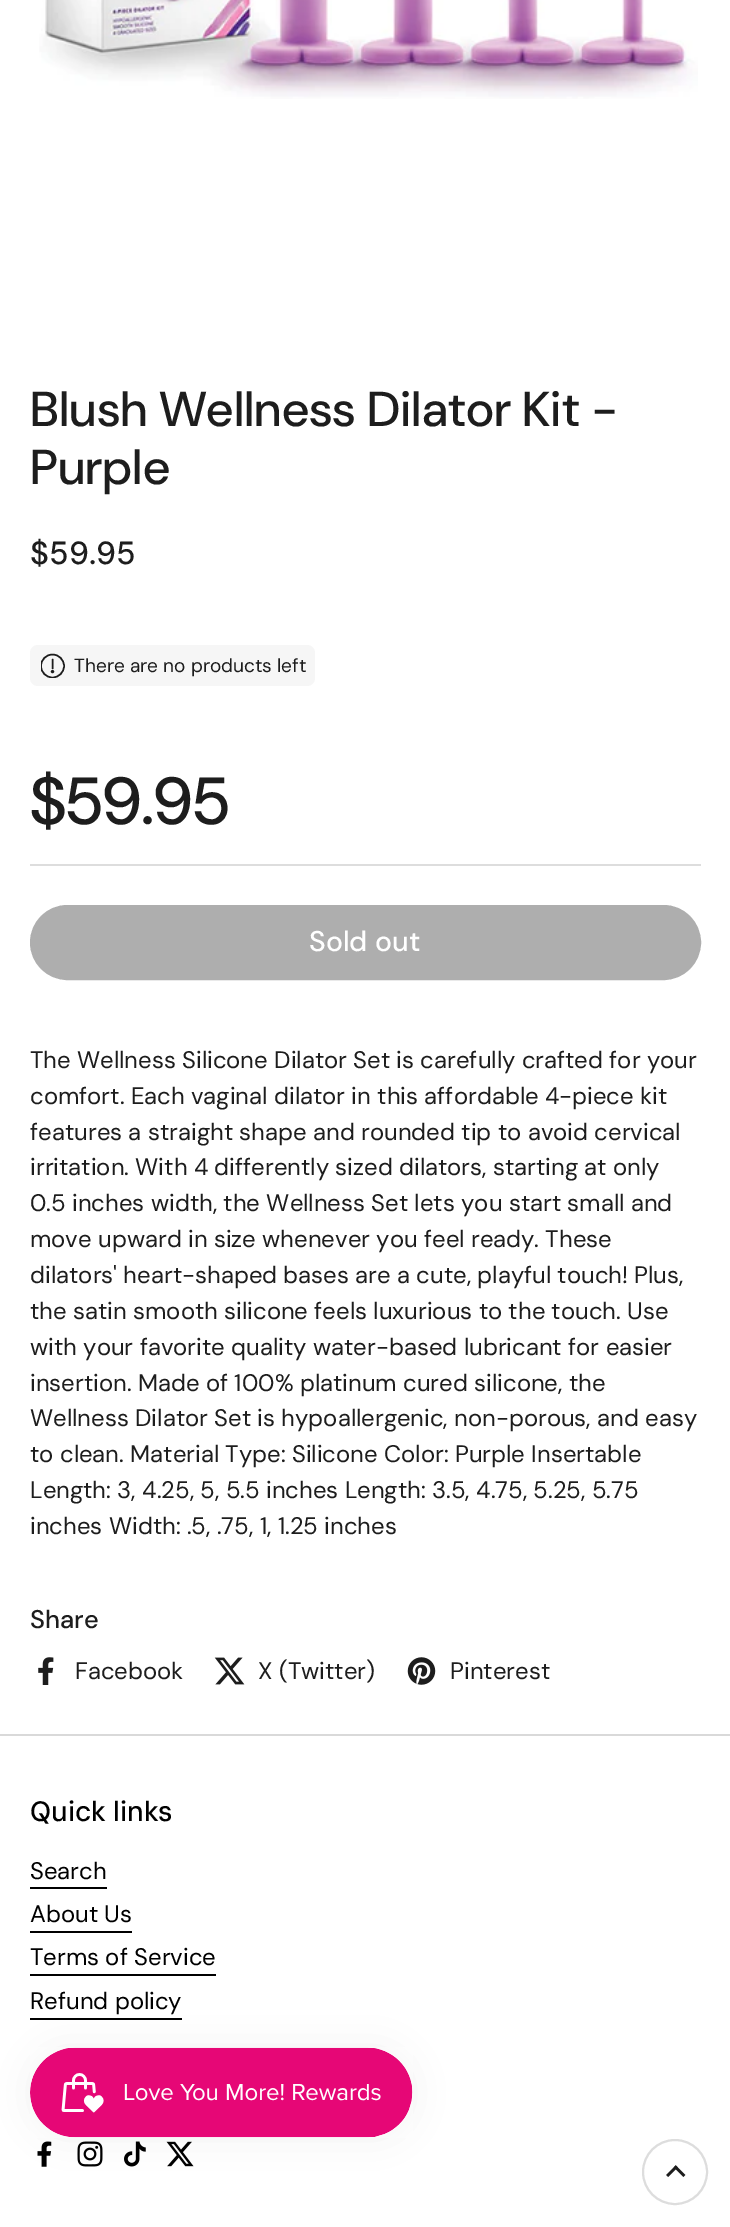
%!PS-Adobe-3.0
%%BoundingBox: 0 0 730 2227
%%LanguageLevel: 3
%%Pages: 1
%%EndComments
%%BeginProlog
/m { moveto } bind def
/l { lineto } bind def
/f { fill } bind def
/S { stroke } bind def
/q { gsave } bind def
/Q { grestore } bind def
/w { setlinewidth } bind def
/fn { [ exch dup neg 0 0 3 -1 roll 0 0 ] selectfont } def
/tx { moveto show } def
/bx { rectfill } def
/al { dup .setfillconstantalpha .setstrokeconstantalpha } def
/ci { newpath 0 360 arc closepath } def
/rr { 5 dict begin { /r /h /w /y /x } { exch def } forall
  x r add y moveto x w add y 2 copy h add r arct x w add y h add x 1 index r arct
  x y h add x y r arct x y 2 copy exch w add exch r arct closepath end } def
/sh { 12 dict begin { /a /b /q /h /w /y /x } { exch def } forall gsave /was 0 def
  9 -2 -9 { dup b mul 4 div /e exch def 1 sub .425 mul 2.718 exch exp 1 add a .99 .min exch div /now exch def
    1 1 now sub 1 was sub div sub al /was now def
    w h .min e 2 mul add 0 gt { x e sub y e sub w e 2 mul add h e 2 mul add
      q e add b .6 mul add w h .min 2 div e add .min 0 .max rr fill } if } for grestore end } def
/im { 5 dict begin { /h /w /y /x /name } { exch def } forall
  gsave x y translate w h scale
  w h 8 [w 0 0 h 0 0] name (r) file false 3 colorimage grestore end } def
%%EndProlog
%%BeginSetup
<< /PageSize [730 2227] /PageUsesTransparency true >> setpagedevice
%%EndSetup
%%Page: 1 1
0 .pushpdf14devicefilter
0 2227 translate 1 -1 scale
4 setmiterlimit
1 setgray
0 0 730 2227 bx
(image0.raw) 39 0 659 99 im
/DMSans-Medium 49 fn
0.114 setgray
(Blush Wellness Dilator Kit -) 30 426 tx
(Purple) 30 484 tx
/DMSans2-Medium 32 fn
($59.95) 30 564 tx
0.965 setgray
30 645 285 41 8 rr f
q
41 653 24 25 rectclip
0.114 setgray
1.5 w
52.5 666 11.5 ci S
Q
0.114 setgray
1.5 w
1 setlinecap
1 setlinejoin
52.5 659.5 m 52.5 668.5 l S
0 setlinecap
0 setlinejoin
52.5 671.6 0.8 ci S
/DMSans2-Regular 19.1 fn
(There are no products left) 74 672 tx
/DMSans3-Medium 66.5 fn
($59.95) 30 824 tx
0.867 setgray
30 864 671 2 bx
0.682 setgray
31 906 669 73 36.5 rr q f Q
2 w
S
/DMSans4-Medium 28.5 fn
1 setgray
(Sold out) 309 951 tx
/DMSans-Regular 23.9 fn
0.114 setgray
(The Wellness Silicone Dilator Set is carefully crafted for your) 30 1068 tx
(comfort. Each vaginal dilator in this affordable 4-piece kit) 30 1104 tx
(features a straight shape and rounded tip to avoid cervical) 30 1140 tx
(irritation. With 4 differently sized dilators, starting at only) 30 1175 tx
(0.5 inches width, the Wellness Set lets you start small and) 30 1211 tx
(move upward in size whenever you feel ready. These) 30 1247 tx
(dilators' heart-shaped bases are a cute, playful touch! Plus,) 30 1283 tx
(the satin smooth silicone feels luxurious to the touch. Use) 30 1319 tx
(with your favorite quality water-based lubricant for easier) 30 1355 tx
(insertion. Made of 100% platinum cured silicone, the) 30 1391 tx
(Wellness Dilator Set is hypoallergenic, non-porous, and easy) 30 1426 tx
(to clean. Material Type: Silicone Color: Purple Insertable) 30 1462 tx
(Length: 3, 4.25, 5, 5.5 inches Length: 3.5, 4.75, 5.25, 5.75) 30 1498 tx
(inches Width: .5, .75, 1, 1.25 inches) 30 1534 tx
/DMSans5-Medium 25.5 fn
(Share) 30 1628 tx
(image1.raw) 38 1657 16 28 im
/DMSans-Regular 23.9 fn
(Facebook) 75 1679 tx
(image2.raw) 214 1657 31 28 im
(X \(Twitter\)) 258 1679 tx
(image3.raw) 407 1657 29 28 im
(Pinterest) 450 1679 tx
0.851 setgray
0 1734 730 2 bx
/DMSans2-Medium 28 fn
0 setgray
(Quick links) 30 1821 tx
/DMSans-Regular 23.9 fn
(Search) 30 1879 tx
30 1887 77 2 bx
(About Us) 30 1922 tx
30 1931 102 2 bx
(Terms of Service) 30 1965 tx
30 1974 186 2 bx
(Refund policy) 30 2009 tx
30 2018 152 2 bx
(image4.raw) 37 2141 15 26 im
(image5.raw) 77 2141 26 26 im
(image6.raw) 124 2141 22 26 im
(image7.raw) 166 2141 28 26 im
30 2048 383 90 45 19 0.05 sh
(image8.raw) 30 2047 383 91 im
0.867 setgray
675 2172 32 ci S
(image9.raw) 666 2165 20 12 im
.poppdf14devicefilter showpage
%%EOF
